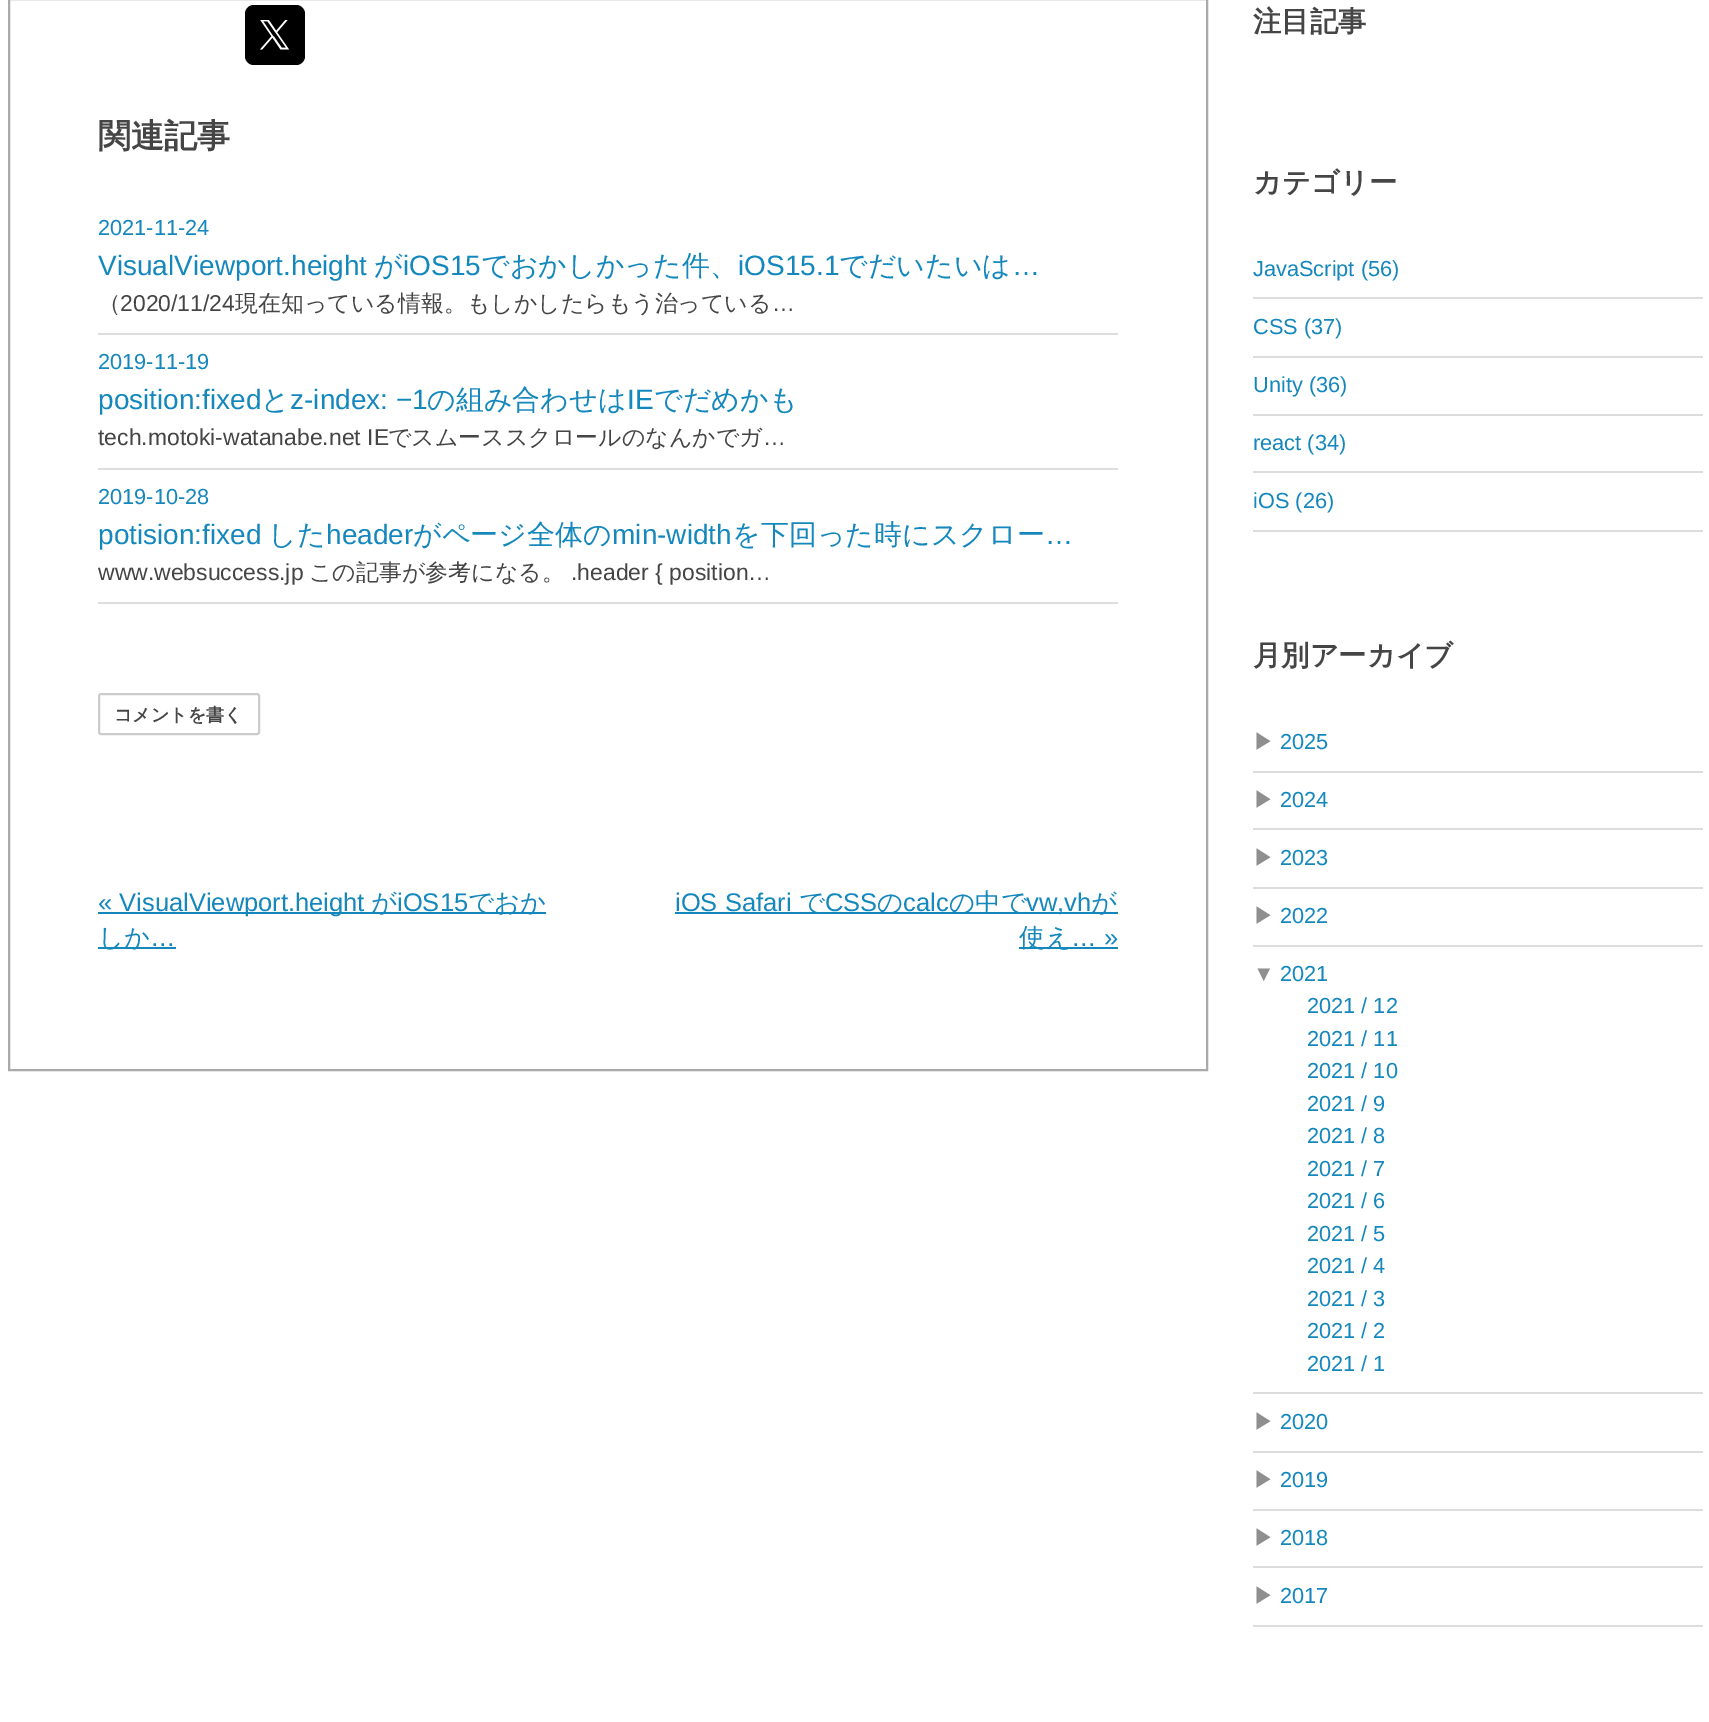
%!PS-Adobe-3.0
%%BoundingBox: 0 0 1709 1722
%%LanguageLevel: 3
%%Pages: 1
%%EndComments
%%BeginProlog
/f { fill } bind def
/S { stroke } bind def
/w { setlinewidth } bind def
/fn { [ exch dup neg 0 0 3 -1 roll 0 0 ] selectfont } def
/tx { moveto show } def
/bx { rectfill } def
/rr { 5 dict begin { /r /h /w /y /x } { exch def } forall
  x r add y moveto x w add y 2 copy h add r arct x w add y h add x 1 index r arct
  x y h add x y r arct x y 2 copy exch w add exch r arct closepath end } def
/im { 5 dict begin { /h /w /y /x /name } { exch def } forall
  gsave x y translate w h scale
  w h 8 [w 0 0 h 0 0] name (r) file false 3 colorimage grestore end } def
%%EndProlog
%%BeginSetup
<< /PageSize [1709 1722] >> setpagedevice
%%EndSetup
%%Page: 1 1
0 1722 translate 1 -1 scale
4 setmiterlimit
1 setgray
0 0 1709 1722 bx
0.667 setgray
2 w
9 -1 1198 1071 rectstroke
0 setgray
245 5 60 60 9 rr f
(image0.raw) 260 20 30 30 im
/WenQuanYiZenHei-Bold 33 fn
0.271 setgray
(関連記事) 98 147 tx
0.867 setgray
98 333 1020 2 bx
/LiberationSans-Regular 21.75 fn
0.078 0.529 0.741 setrgbcolor
(2021-11-24) 98 235 tx
/LiberationSans-Regular 28 fn
(VisualViewport.height) 98 275 tx
/WenQuanYiZenHei-Medium 28 fn
(が) 374 275 tx
/LiberationSans-Regular 28 fn
(iOS15) 403 275 tx
/WenQuanYiZenHei-Medium 28 fn
(でおかしかった件、) 481 275 tx
/LiberationSans-Regular 28 fn
(iOS15.1) 738 275 tx
/WenQuanYiZenHei-Medium 28 fn
(でだいたいは) 839 275 tx
/LiberationSans-Regular 28 fn
(…) 1012 275 tx
/WenQuanYiZenHei-Medium 22.95 fn
0.271 setgray
(（) 98 311 tx
/LiberationSans-Regular 22.95 fn
(2020/11/24) 120 311 tx
/WenQuanYiZenHei-Medium 22.95 fn
(現在知っている情報。もしかしたらもう治っている) 235 311 tx
/LiberationSans-Regular 22.95 fn
(…) 772 311 tx
0.867 setgray
98 468 1020 2 bx
/LiberationSans-Regular 21.75 fn
0.078 0.529 0.741 setrgbcolor
(2019-11-19) 98 369 tx
/LiberationSans-Regular 28 fn
(position:fixed) 98 409 tx
/WenQuanYiZenHei-Medium 28 fn
(と) 261 409 tx
/LiberationSans-Regular 28 fn
(z-index: −1) 290 409 tx
/WenQuanYiZenHei-Medium 28 fn
(の組み合わせは) 427 409 tx
/LiberationSans-Regular 28 fn
(IE) 627 409 tx
/WenQuanYiZenHei-Medium 28 fn
(でだめかも) 654 409 tx
/LiberationSans-Regular 22.95 fn
0.271 setgray
(tech.motoki-watanabe.net IE) 98 445 tx
/WenQuanYiZenHei-Medium 22.95 fn
(でスムーススクロールのなんかでガ) 388 445 tx
/LiberationSans-Regular 22.95 fn
(…) 763 445 tx
0.867 setgray
98 602 1020 2 bx
/LiberationSans-Regular 21.75 fn
0.078 0.529 0.741 setrgbcolor
(2019-10-28) 98 504 tx
/LiberationSans-Regular 28 fn
(potision:fixed) 98 544 tx
/WenQuanYiZenHei-Medium 28 fn
(した) 268 544 tx
/LiberationSans-Regular 28 fn
(header) 326 544 tx
/WenQuanYiZenHei-Medium 28 fn
(がページ全体の) 413 544 tx
/LiberationSans-Regular 28 fn
(min-width) 612 544 tx
/WenQuanYiZenHei-Medium 28 fn
(を下回った時にスクロー) 732 544 tx
/LiberationSans-Regular 28 fn
(…) 1045 544 tx
/LiberationSans-Regular 22.95 fn
0.271 setgray
(www.websuccess.jp) 98 580 tx
/WenQuanYiZenHei-Medium 22.95 fn
(この記事が参考になる。) 309 580 tx
/LiberationSans-Regular 22.95 fn
(.header { position…) 571 580 tx
0.8 setgray
99 694 160 40 2 rr S
/WenQuanYiZenHei-Bold 18 fn
0.271 setgray
(コメントを書く) 114 721 tx
0.078 0.529 0.741 setrgbcolor
98 912 448 2 bx
/LiberationSans-Regular 25.5 fn
(« VisualViewport.height) 98 911 tx
/WenQuanYiZenHei-Medium 25.5 fn
(が) 371 911 tx
/LiberationSans-Regular 25.5 fn
(iOS15) 397 911 tx
/WenQuanYiZenHei-Medium 25.5 fn
(でおか) 468 911 tx
98 947 78 2 bx
(しか) 98 946 tx
/LiberationSans-Regular 25.5 fn
(…) 150 946 tx
(iOS Safari) 675 911 tx
675 912 443 2 bx
/WenQuanYiZenHei-Medium 25.5 fn
(で) 799 911 tx
/LiberationSans-Regular 25.5 fn
(CSS) 825 911 tx
/WenQuanYiZenHei-Medium 25.5 fn
(の) 877 911 tx
/LiberationSans-Regular 25.5 fn
(calc) 903 911 tx
/WenQuanYiZenHei-Medium 25.5 fn
(の中で) 949 911 tx
/LiberationSans-Regular 25.5 fn
(vw,vh) 1026 911 tx
/WenQuanYiZenHei-Medium 25.5 fn
(が) 1091 911 tx
1019 947 99 2 bx
(使え) 1019 946 tx
/LiberationSans-Regular 25.5 fn
(… ») 1071 946 tx
/WenQuanYiZenHei-Bold 28.25 fn
0.271 setgray
(注目記事) 1253 31 tx
(カテゴリー) 1253 192 tx
0.867 setgray
1253 297 450 2 bx
/LiberationSans-Regular 21.75 fn
0.078 0.529 0.741 setrgbcolor
(JavaScript \(56\)) 1253 276 tx
0.867 setgray
1253 356 450 2 bx
0.078 0.529 0.741 setrgbcolor
(CSS \(37\)) 1253 334 tx
0.867 setgray
1253 414 450 2 bx
0.078 0.529 0.741 setrgbcolor
(Unity \(36\)) 1253 392 tx
0.867 setgray
1253 471 450 2 bx
0.078 0.529 0.741 setrgbcolor
(react \(34\)) 1253 450 tx
0.867 setgray
1253 530 450 2 bx
0.078 0.529 0.741 setrgbcolor
(iOS \(26\)) 1253 508 tx
/WenQuanYiZenHei-Bold 28.25 fn
0.271 setgray
(月別アーカイブ) 1253 665 tx
0.867 setgray
1253 771 450 2 bx
/WenQuanYiZenHei-Medium 21.75 fn
0.561 setgray
(▶) 1253 749 tx
/LiberationSans-Regular 21.75 fn
0.078 0.529 0.741 setrgbcolor
(2025) 1280 749 tx
0.867 setgray
1253 828 450 2 bx
/WenQuanYiZenHei-Medium 21.75 fn
0.561 setgray
(▶) 1253 807 tx
/LiberationSans-Regular 21.75 fn
0.078 0.529 0.741 setrgbcolor
(2024) 1280 807 tx
0.867 setgray
1253 887 450 2 bx
/WenQuanYiZenHei-Medium 21.75 fn
0.561 setgray
(▶) 1253 865 tx
/LiberationSans-Regular 21.75 fn
0.078 0.529 0.741 setrgbcolor
(2023) 1280 865 tx
0.867 setgray
1253 945 450 2 bx
/WenQuanYiZenHei-Medium 21.75 fn
0.561 setgray
(▶) 1253 923 tx
/LiberationSans-Regular 21.75 fn
0.078 0.529 0.741 setrgbcolor
(2022) 1280 923 tx
0.867 setgray
1253 1392 450 2 bx
0.561 setgray
(▼) 1253 981 tx
0.078 0.529 0.741 setrgbcolor
(2021) 1280 981 tx
(2021 / 12) 1307 1013 tx
(2021 / 11) 1307 1046 tx
(2021 / 10) 1307 1078 tx
(2021 / 9) 1307 1111 tx
(2021 / 8) 1307 1143 tx
(2021 / 7) 1307 1176 tx
(2021 / 6) 1307 1208 tx
(2021 / 5) 1307 1241 tx
(2021 / 4) 1307 1273 tx
(2021 / 3) 1307 1306 tx
(2021 / 2) 1307 1338 tx
(2021 / 1) 1307 1371 tx
0.867 setgray
1253 1451 450 2 bx
/WenQuanYiZenHei-Medium 21.75 fn
0.561 setgray
(▶) 1253 1429 tx
/LiberationSans-Regular 21.75 fn
0.078 0.529 0.741 setrgbcolor
(2020) 1280 1429 tx
0.867 setgray
1253 1509 450 2 bx
/WenQuanYiZenHei-Medium 21.75 fn
0.561 setgray
(▶) 1253 1487 tx
/LiberationSans-Regular 21.75 fn
0.078 0.529 0.741 setrgbcolor
(2019) 1280 1487 tx
0.867 setgray
1253 1566 450 2 bx
/WenQuanYiZenHei-Medium 21.75 fn
0.561 setgray
(▶) 1253 1545 tx
/LiberationSans-Regular 21.75 fn
0.078 0.529 0.741 setrgbcolor
(2018) 1280 1545 tx
0.867 setgray
1253 1625 450 2 bx
/WenQuanYiZenHei-Medium 21.75 fn
0.561 setgray
(▶) 1253 1603 tx
/LiberationSans-Regular 21.75 fn
0.078 0.529 0.741 setrgbcolor
(2017) 1280 1603 tx
showpage
%%EOF
